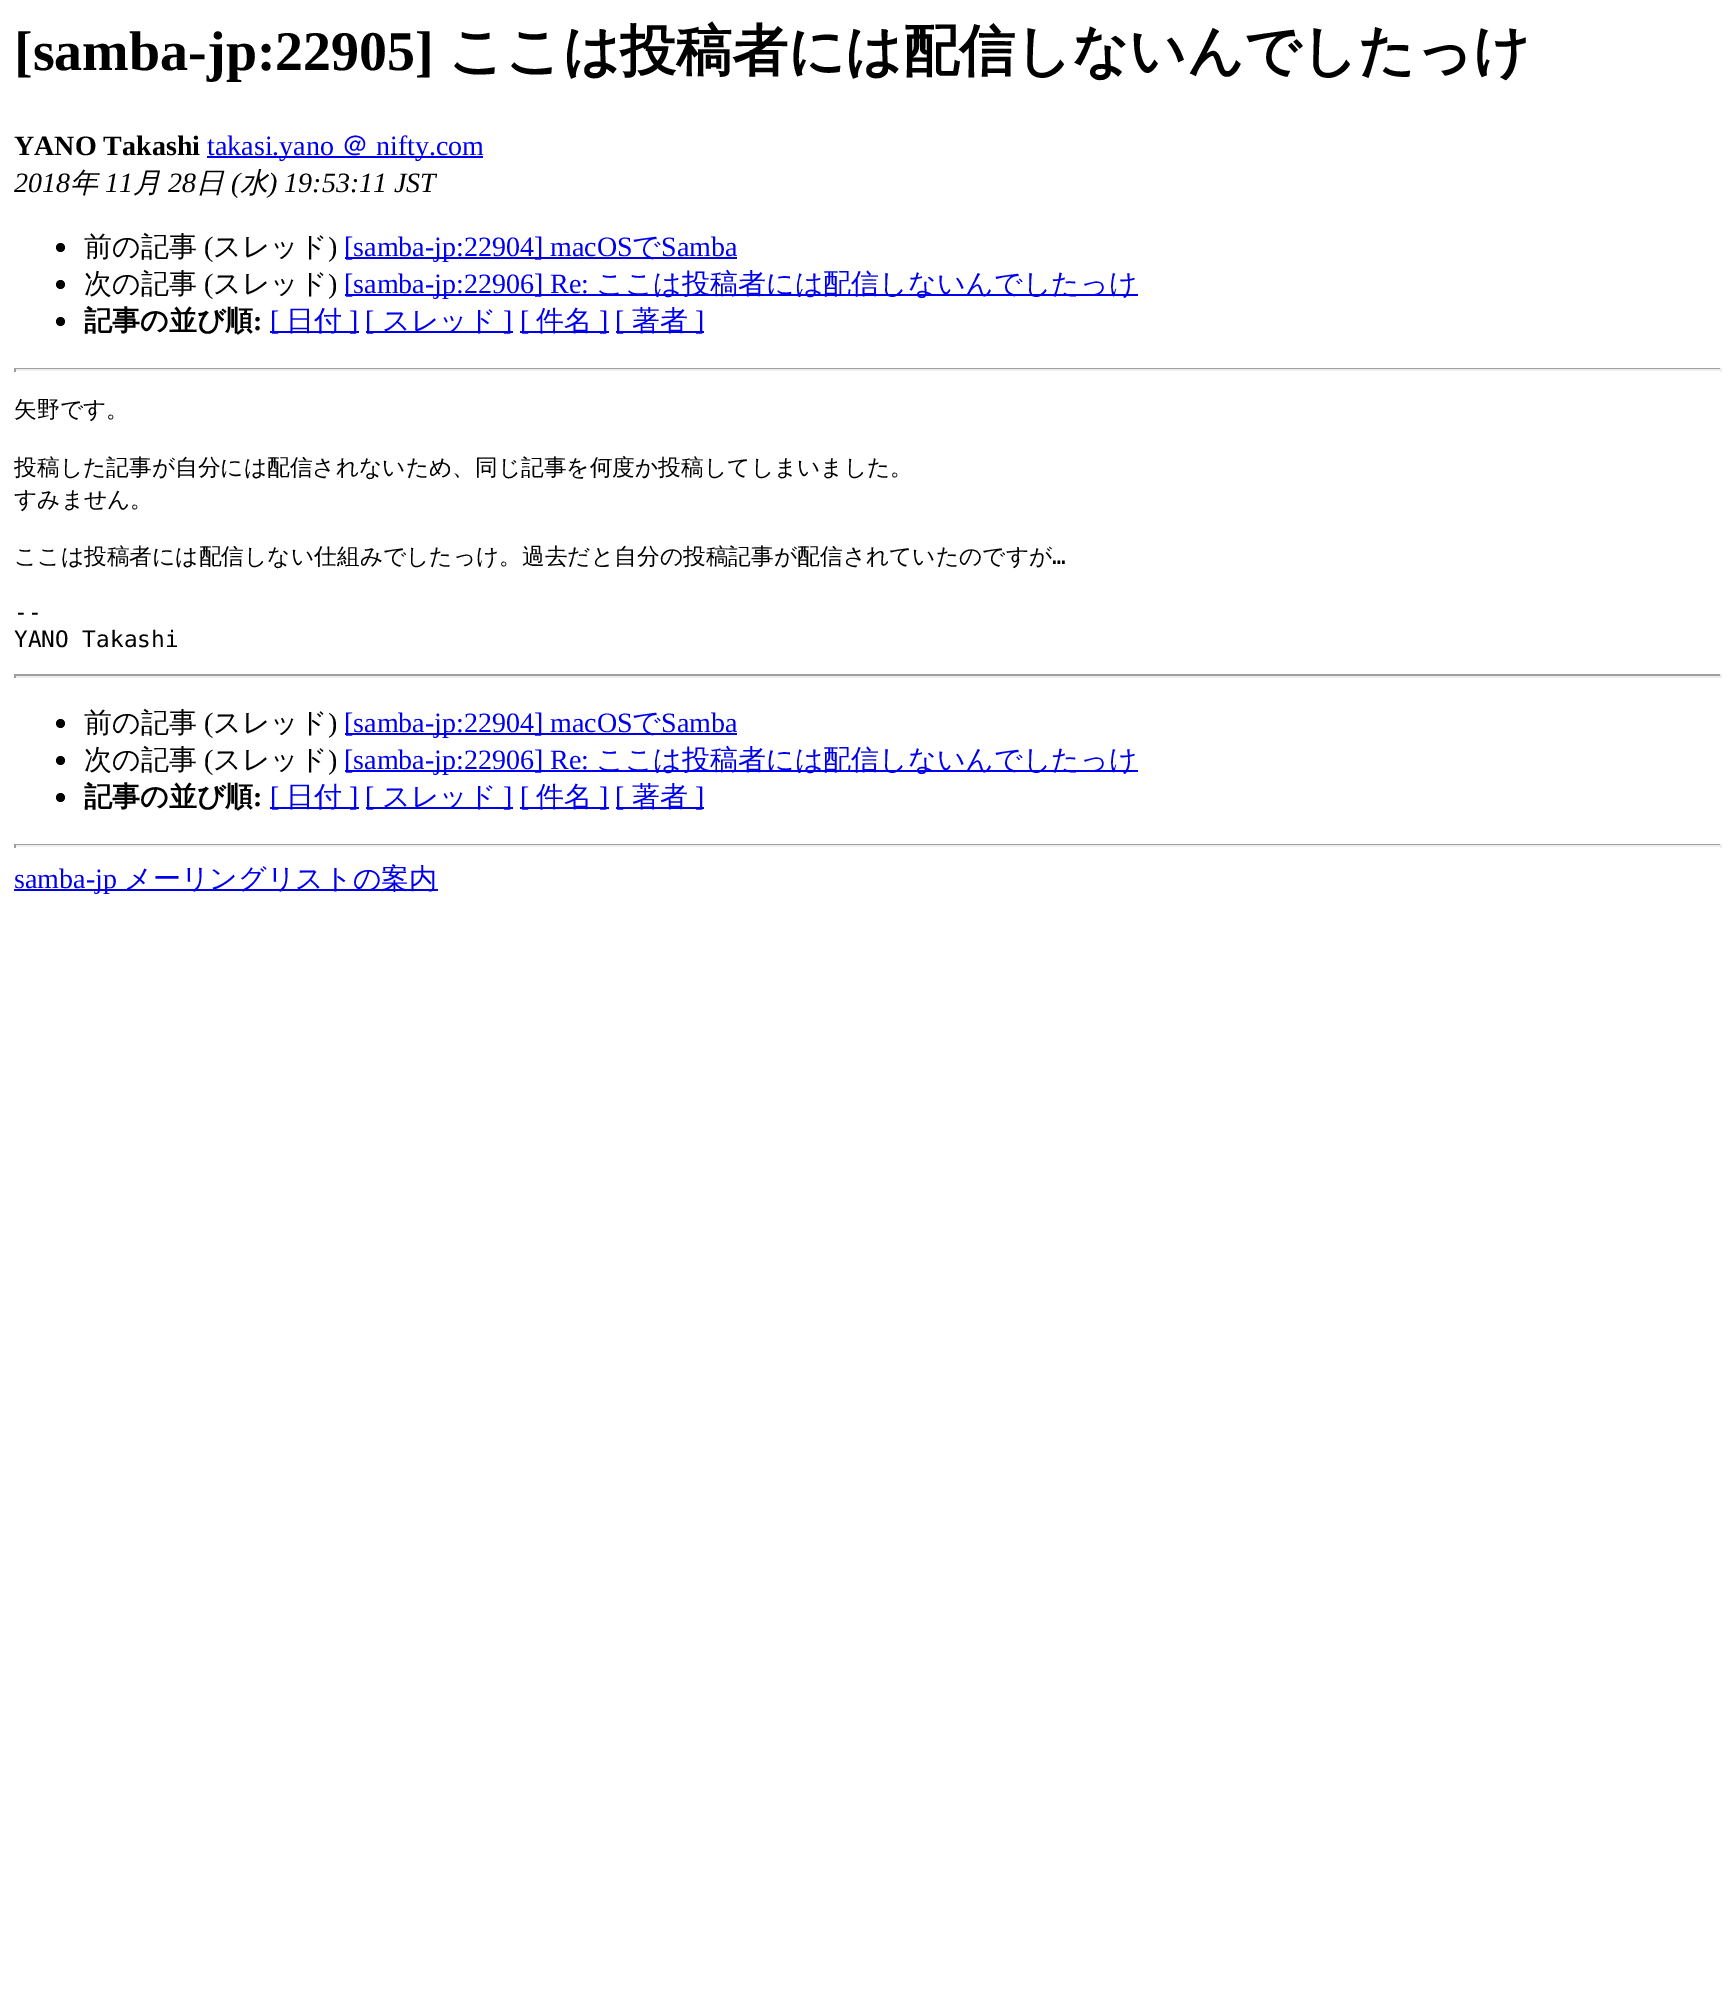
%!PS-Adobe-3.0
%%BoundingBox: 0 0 1736 2007
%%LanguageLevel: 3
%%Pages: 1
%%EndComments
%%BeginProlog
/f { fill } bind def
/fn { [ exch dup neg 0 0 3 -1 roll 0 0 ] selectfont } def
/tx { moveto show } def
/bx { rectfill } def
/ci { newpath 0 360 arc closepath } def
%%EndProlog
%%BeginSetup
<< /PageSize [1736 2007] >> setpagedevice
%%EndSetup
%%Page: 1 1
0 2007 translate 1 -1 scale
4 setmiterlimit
1 setgray
0 0 1736 2007 bx
/LiberationSerif-Bold 56 fn
0 setgray
([samba-jp:22905]) 14 70 tx
/WenQuanYiZenHei-Bold 56 fn
(ここは投稿者には配信しないんでしたっけ) 448 70 tx
/LiberationSerif-Bold 28 fn
(YANO Takashi) 14 155 tx
0 0 0.933 setrgbcolor
207 156 276 2 bx
/LiberationSerif-Regular 28 fn
(takasi.yano) 207 155 tx
/WenQuanYiZenHei-Medium 28 fn
(＠) 341 155 tx
/LiberationSerif-Regular 28 fn
(nifty.com) 376 155 tx
/LiberationSerif-Italic 28 fn
0 setgray
(2018) 14 192 tx
/WenQuanYiZenHei-MediumItalic 28 fn
(年) 70 192 tx
/LiberationSerif-Italic 28 fn
(11) 105 192 tx
/WenQuanYiZenHei-MediumItalic 28 fn
(月) 133 192 tx
/LiberationSerif-Italic 28 fn
(28) 168 192 tx
/WenQuanYiZenHei-MediumItalic 28 fn
(日) 196 192 tx
/LiberationSerif-Italic 28 fn
(\() 231 192 tx
/WenQuanYiZenHei-MediumItalic 28 fn
(水) 240 192 tx
/LiberationSerif-Italic 28 fn
(\) 19:53:11 JST) 268 192 tx
60.5 247.5 4.5 ci f
/WenQuanYiZenHei-Medium 28 fn
(前の記事) 84 256 tx
/LiberationSerif-Regular 28 fn
(\() 204 256 tx
/WenQuanYiZenHei-Medium 28 fn
(スレッド) 213 256 tx
/LiberationSerif-Regular 28 fn
(\)) 328 256 tx
0 0 0.933 setrgbcolor
345 257 392 2 bx
([samba-jp:22904] macOS) 344 256 tx
/WenQuanYiZenHei-Medium 28 fn
(で) 632 256 tx
/LiberationSerif-Regular 28 fn
(Samba) 661 256 tx
0 setgray
60.5 284.5 4.5 ci f
/WenQuanYiZenHei-Medium 28 fn
(次の記事) 84 293 tx
/LiberationSerif-Regular 28 fn
(\() 204 293 tx
/WenQuanYiZenHei-Medium 28 fn
(スレッド) 213 293 tx
/LiberationSerif-Regular 28 fn
(\)) 328 293 tx
0 0 0.933 setrgbcolor
345 294 793 2 bx
([samba-jp:22906] Re:) 344 293 tx
/WenQuanYiZenHei-Medium 28 fn
(ここは投稿者には配信しないんでしたっけ) 596 293 tx
0 setgray
60.5 321.5 4.5 ci f
/WenQuanYiZenHei-Bold 28 fn
(記事の並び順) 84 330 tx
/LiberationSerif-Bold 28 fn
(:) 253 330 tx
0 0 0.933 setrgbcolor
270 331 89 2 bx
/LiberationSerif-Regular 28 fn
([) 270 330 tx
/WenQuanYiZenHei-Medium 28 fn
(日付) 286 330 tx
/LiberationSerif-Regular 28 fn
(]) 349 330 tx
366 331 147 2 bx
([) 365 330 tx
/WenQuanYiZenHei-Medium 28 fn
(スレッド) 382 330 tx
/LiberationSerif-Regular 28 fn
(]) 503 330 tx
520 331 89 2 bx
([) 520 330 tx
/WenQuanYiZenHei-Medium 28 fn
(件名) 536 330 tx
/LiberationSerif-Regular 28 fn
(]) 599 330 tx
616 331 88 2 bx
([) 615 330 tx
/WenQuanYiZenHei-Medium 28 fn
(著者) 632 330 tx
/LiberationSerif-Regular 28 fn
(]) 695 330 tx
0.624 setgray
14 368 1708 1 bx
0.933 setgray
1720 368 2 4 bx
14 369 1708 2 bx
0.624 setgray
14 368 2 4 bx
/WenQuanYiZenHei-Medium 22.75 fn
0 setgray
(矢野です。) 14 417 tx
(投稿した記事が自分には配信されないため、同じ記事を何度か投稿してしまいました。) 14 475 tx
(すみません。) 14 507 tx
(ここは投稿者には配信しない仕組みでしたっけ。過去だと自分の投稿記事が配信されていたのですが) 14 564 tx
/DejaVuSansMono-Regular 22.75 fn
(…) 1052 564 tx
(--) 14 620 tx
(YANO Takashi) 14 647 tx
0.624 setgray
14 674 1708 2 bx
0.933 setgray
1720 674 2 4 bx
14 676 1708 2 bx
0.624 setgray
14 674 2 4 bx
0 setgray
60.5 723.5 4.5 ci f
/WenQuanYiZenHei-Medium 28 fn
(前の記事) 84 732 tx
/LiberationSerif-Regular 28 fn
(\() 204 732 tx
/WenQuanYiZenHei-Medium 28 fn
(スレッド) 213 732 tx
/LiberationSerif-Regular 28 fn
(\)) 328 732 tx
0 0 0.933 setrgbcolor
345 733 392 2 bx
([samba-jp:22904] macOS) 344 732 tx
/WenQuanYiZenHei-Medium 28 fn
(で) 632 732 tx
/LiberationSerif-Regular 28 fn
(Samba) 661 732 tx
0 setgray
60.5 760.5 4.5 ci f
/WenQuanYiZenHei-Medium 28 fn
(次の記事) 84 769 tx
/LiberationSerif-Regular 28 fn
(\() 204 769 tx
/WenQuanYiZenHei-Medium 28 fn
(スレッド) 213 769 tx
/LiberationSerif-Regular 28 fn
(\)) 328 769 tx
0 0 0.933 setrgbcolor
345 770 793 2 bx
([samba-jp:22906] Re:) 344 769 tx
/WenQuanYiZenHei-Medium 28 fn
(ここは投稿者には配信しないんでしたっけ) 596 769 tx
0 setgray
60.5 797.5 4.5 ci f
/WenQuanYiZenHei-Bold 28 fn
(記事の並び順) 84 806 tx
/LiberationSerif-Bold 28 fn
(:) 253 806 tx
0 0 0.933 setrgbcolor
270 807 89 2 bx
/LiberationSerif-Regular 28 fn
([) 270 806 tx
/WenQuanYiZenHei-Medium 28 fn
(日付) 286 806 tx
/LiberationSerif-Regular 28 fn
(]) 349 806 tx
366 807 147 2 bx
([) 365 806 tx
/WenQuanYiZenHei-Medium 28 fn
(スレッド) 382 806 tx
/LiberationSerif-Regular 28 fn
(]) 503 806 tx
520 807 89 2 bx
([) 520 806 tx
/WenQuanYiZenHei-Medium 28 fn
(件名) 536 806 tx
/LiberationSerif-Regular 28 fn
(]) 599 806 tx
616 807 88 2 bx
([) 615 806 tx
/WenQuanYiZenHei-Medium 28 fn
(著者) 632 806 tx
/LiberationSerif-Regular 28 fn
(]) 695 806 tx
0.624 setgray
14 844 1708 1 bx
0.933 setgray
1720 844 2 4 bx
14 845 1708 2 bx
0.624 setgray
14 844 2 4 bx
0 0 0.933 setrgbcolor
14 889 424 2 bx
(samba-jp) 14 888 tx
/WenQuanYiZenHei-Medium 28 fn
(メーリングリストの案内) 124 888 tx
showpage
%%EOF
